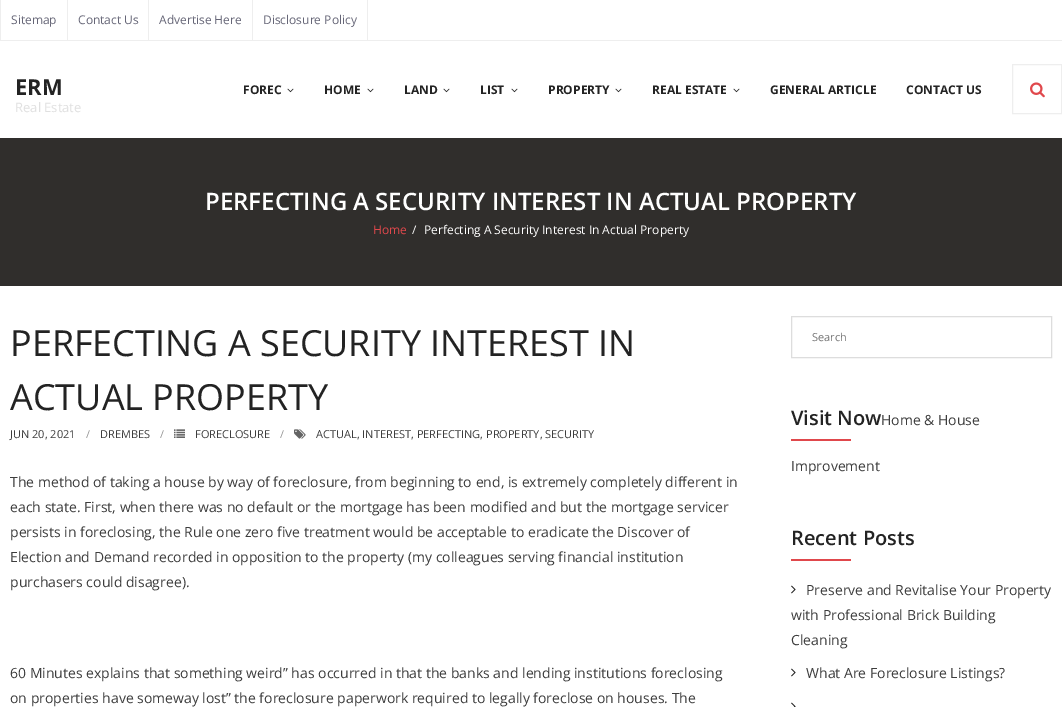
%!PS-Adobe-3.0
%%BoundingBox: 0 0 1062 707
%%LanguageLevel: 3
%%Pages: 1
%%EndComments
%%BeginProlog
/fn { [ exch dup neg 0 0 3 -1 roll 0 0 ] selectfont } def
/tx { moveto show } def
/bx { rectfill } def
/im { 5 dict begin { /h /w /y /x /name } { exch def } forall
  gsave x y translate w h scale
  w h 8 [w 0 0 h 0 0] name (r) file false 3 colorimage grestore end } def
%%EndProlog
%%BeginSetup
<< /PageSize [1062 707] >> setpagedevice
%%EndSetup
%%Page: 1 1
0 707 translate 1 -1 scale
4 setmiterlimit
1 setgray
0 0 1062 707 bx
0.933 setgray
0 40 1062 1 bx
0 0 1 40 bx
/OpenSans-Regular 12 fn
0.4 0.4 0.467 setrgbcolor
(Sitemap) 11 24 tx
0.933 setgray
67 0 1 40 bx
0.4 0.4 0.467 setrgbcolor
(Contact Us) 78 24 tx
0.933 setgray
148 0 1 40 bx
0.4 0.4 0.467 setrgbcolor
(Advertise Here) 159 24 tx
0.933 setgray
367 0 1 40 bx
252 0 1 40 bx
0.4 0.4 0.467 setrgbcolor
(Disclosure Policy) 263 24 tx
/OpenSans-Bold 22 fn
0.137 setgray
(ERM) 15 95 tx
/OpenSans-Regular 13 fn
0.878 setgray
(Real Estate) 15 112 tx
/OpenSans-Bold 12 fn
0.137 setgray
(FOREC) 243 94 tx
(image0.raw) 287 88 7 5 im
(HOME) 324 94 tx
(image0.raw) 367 88 7 5 im
(LAND) 404 94 tx
(image0.raw) 443 88 7 5 im
(LIST) 480 94 tx
(image0.raw) 511 88 7 5 im
(PROPERTY) 548 94 tx
(image0.raw) 615 88 7 5 im
(REAL ESTATE) 652 94 tx
(image0.raw) 733 88 7 5 im
(GENERAL ARTICLE) 770 94 tx
(CONTACT US) 906 94 tx
0.933 setgray
1012.5 64.5 49 49 rectstroke
(image1.raw) 1030 82 15 16 im
0.188 0.18 0.173 setrgbcolor
0 138 1062 148 bx
/OpenSans-SemiBold 24 fn
1 setgray
(PERFECTING A SECURITY INTEREST IN ACTUAL PROPERTY) 205 210 tx
/OpenSans-Regular 12 fn
0.878 0.282 0.298 setrgbcolor
(Home) 373 234 tx
1 setgray
(/) 412 234 tx
(Perfecting A Security Interest In Actual Property) 424 234 tx
/OpenSans-Regular 36 fn
0.137 setgray
(PERFECTING A SECURITY INTEREST IN) 10 356 tx
(ACTUAL PROPERTY) 10 410 tx
/OpenSans-Regular 11 fn
0.239 setgray
(JUN 20, 2021) 10 438 tx
0.6 setgray
(/) 86 438 tx
0.239 setgray
(DREMBES) 100 438 tx
0.6 setgray
(/) 160 438 tx
(image2.raw) 174 429 11 9 im
0.239 setgray
(FORECLOSURE) 195 438 tx
0.6 setgray
(/) 280 438 tx
(image3.raw) 294 429 12 10 im
0.239 setgray
(ACTUAL, INTEREST, PERFECTING, PROPERTY, SECURITY) 316 438 tx
/OpenSans-Regular 14 fn
(The method of taking a house by way of foreclosure, from beginning to end, is extremely completely different in) 10 487 tx
(each state. First, when there was no default or the mortgage has been modified and but the mortgage servicer) 10 512 tx
(persists in foreclosing, the Rule one zero five treatment would be acceptable to eradicate the Discover of) 10 537 tx
(Election and Demand recorded in opposition to the property \(my colleagues serving financial institution) 10 562 tx
(purchasers could disagree\).) 10 587 tx
(60 Minutes explains that something weird” has occurred in that the banks and lending institutions foreclosing) 10 678 tx
(on properties have someway lost” the foreclosure paperwork required to legally foreclose on houses. The) 10 703 tx
0.867 setgray
791.5 316.5 260 41 rectstroke
/OpenSans-Regular 11 fn
0.459 setgray
(Search) 812 341 tx
/OpenSans-SemiBold 20 fn
0.137 setgray
(Visit Now) 791 425 tx
0.878 0.282 0.298 setrgbcolor
791 439 60 2 bx
/OpenSans-Regular 14 fn
0.239 setgray
(Home & House) 881 425 tx
(Improvement) 791 471 tx
/OpenSans-SemiBold 20 fn
0.137 setgray
(Recent Posts) 791 545 tx
0.878 0.282 0.298 setrgbcolor
791 559 60 2 bx
(image4.raw) 791 585 5 9 im
/OpenSans-Regular 14 fn
0.239 setgray
(Preserve and Revitalise Your Property) 806 595 tx
(with Professional Brick Building) 791 620 tx
(Cleaning) 791 645 tx
(image4.raw) 791 668 5 9 im
(What Are Foreclosure Listings?) 806 678 tx
(image5.raw) 791 702 5 5 im
showpage
%%EOF
